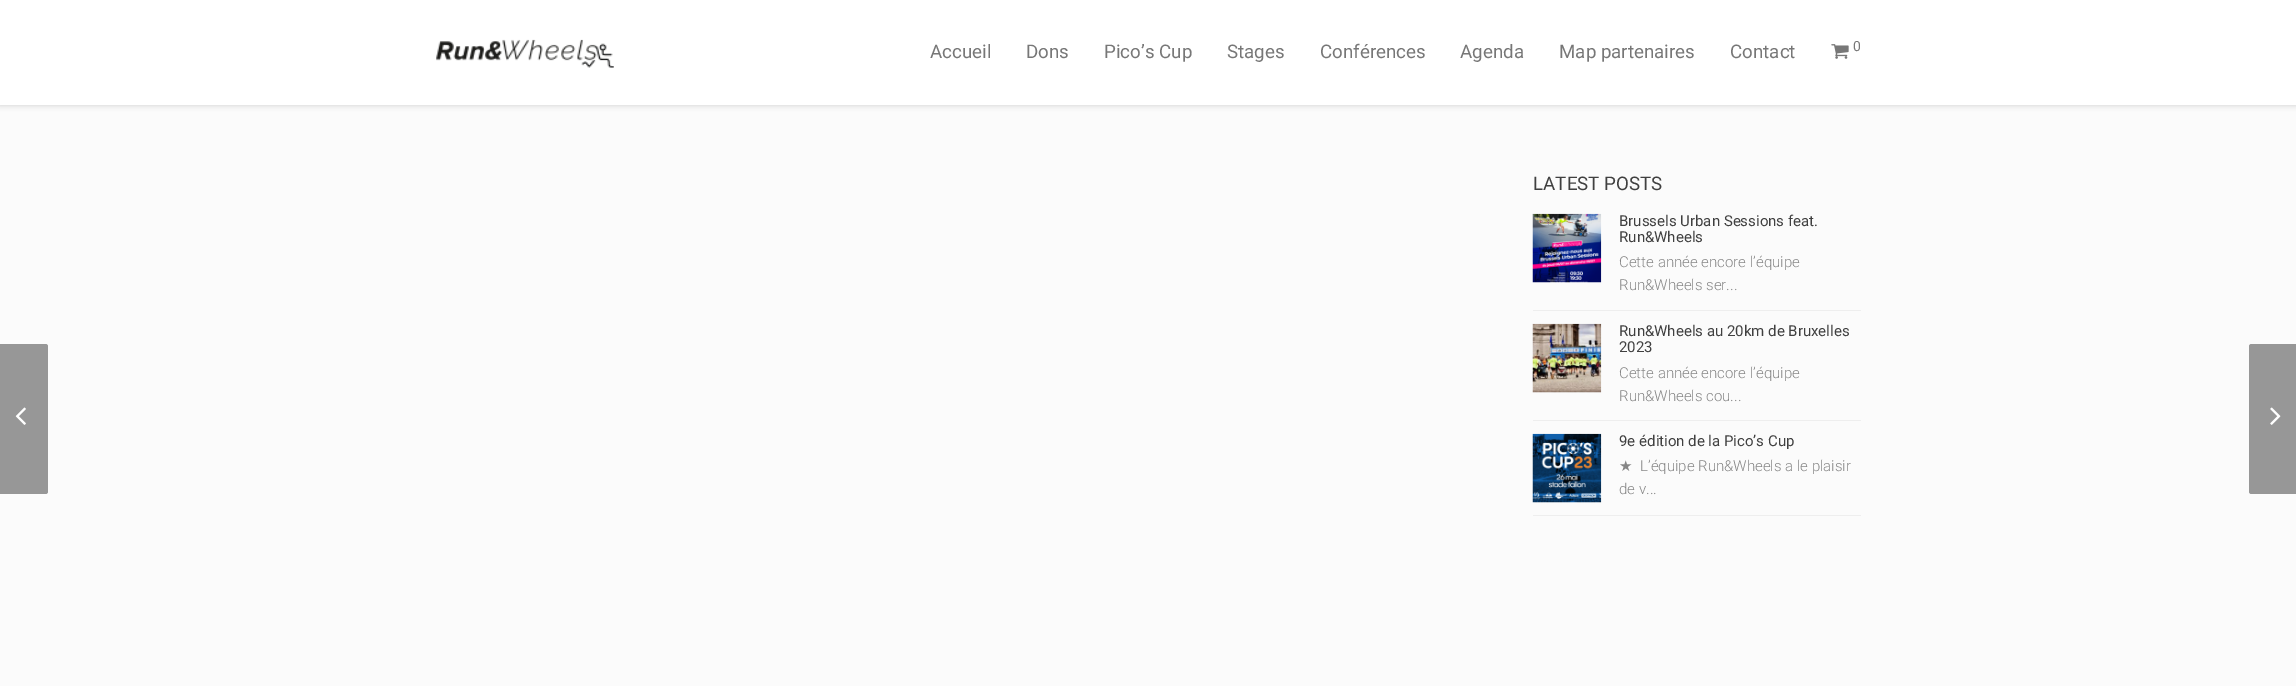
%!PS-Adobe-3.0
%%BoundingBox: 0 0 2296 686
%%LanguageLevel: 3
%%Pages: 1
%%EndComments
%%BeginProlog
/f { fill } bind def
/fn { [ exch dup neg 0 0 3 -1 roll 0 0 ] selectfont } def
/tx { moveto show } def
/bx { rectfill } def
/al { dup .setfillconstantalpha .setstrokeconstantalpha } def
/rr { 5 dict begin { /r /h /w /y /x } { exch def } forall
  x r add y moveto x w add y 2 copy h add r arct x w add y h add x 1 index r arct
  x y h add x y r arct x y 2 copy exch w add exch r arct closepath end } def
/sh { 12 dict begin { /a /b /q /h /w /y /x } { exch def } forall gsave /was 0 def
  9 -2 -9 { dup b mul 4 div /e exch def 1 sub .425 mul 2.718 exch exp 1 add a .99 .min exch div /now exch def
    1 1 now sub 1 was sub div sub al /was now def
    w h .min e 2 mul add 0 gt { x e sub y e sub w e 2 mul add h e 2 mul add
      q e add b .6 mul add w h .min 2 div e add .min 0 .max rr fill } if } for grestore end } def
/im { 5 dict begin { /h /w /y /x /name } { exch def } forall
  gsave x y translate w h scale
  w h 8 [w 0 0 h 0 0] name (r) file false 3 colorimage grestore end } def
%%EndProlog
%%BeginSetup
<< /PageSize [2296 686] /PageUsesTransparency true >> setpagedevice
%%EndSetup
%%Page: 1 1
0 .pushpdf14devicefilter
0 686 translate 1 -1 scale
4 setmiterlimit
0.984 setgray
0 0 2296 686 bx
0 setgray
0 0 2296 105 0 3 0.19 sh
1 setgray
0 0 2296 105 bx
(image0.raw) 436 39 178 29 im
/Roboto-Regular 18.75 fn
0.467 setgray
(Accueil) 930 58 tx
(Dons) 1026 58 tx
(Pico’s Cup) 1104 58 tx
(Stages) 1227 58 tx
(Conférences) 1320 58 tx
(Agenda) 1460 58 tx
(Map partenaires) 1559 58 tx
(Contact) 1730 58 tx
(image1.raw) 1831 44 18 15 im
/Roboto-Regular 14 fn
(0) 1853 51 tx
0.592 setgray
-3 344 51 150 2.5 rr f
(image2.raw) 15 407 11 18 im
/Roboto-Regular 18.75 fn
0.251 setgray
(LATEST POSTS) 1533 190 tx
0.933 setgray
1533 310 328 1 bx
(image3.raw) 1532 213 70 70 im
/Roboto-Regular 15 fn
0.251 setgray
(Brussels Urban Sessions feat.) 1619 226 tx
(Run&Wheels) 1619 242 tx
/Roboto-Light 15 fn
0.525 setgray
(Cette année encore l’équipe) 1619 267 tx
(Run&Wheels ser...) 1619 290 tx
0.933 setgray
1533 420 328 1 bx
(image4.raw) 1532 323 70 70 im
/Roboto-Regular 15 fn
0.251 setgray
(Run&Wheels au 20km de Bruxelles) 1619 336 tx
(2023) 1619 352 tx
/Roboto-Light 15 fn
0.525 setgray
(Cette année encore l’équipe) 1619 378 tx
(Run&Wheels cou...) 1619 401 tx
0.933 setgray
1533 515 328 1 bx
(image5.raw) 1532 433 70 70 im
/Roboto-Regular 15 fn
0.251 setgray
(9e édition de la Pico’s Cup) 1619 446 tx
/DejaVuSans-Regular 15 fn
0.525 setgray
(★) 1619 471 tx
/Roboto-Light 15 fn
(L’équipe Run&Wheels a le plaisir) 1640 471 tx
(de v...) 1619 494 tx
0.592 setgray
2249 344 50 150 2.5 rr f
(image6.raw) 2270 407 11 18 im
.poppdf14devicefilter showpage
%%EOF
